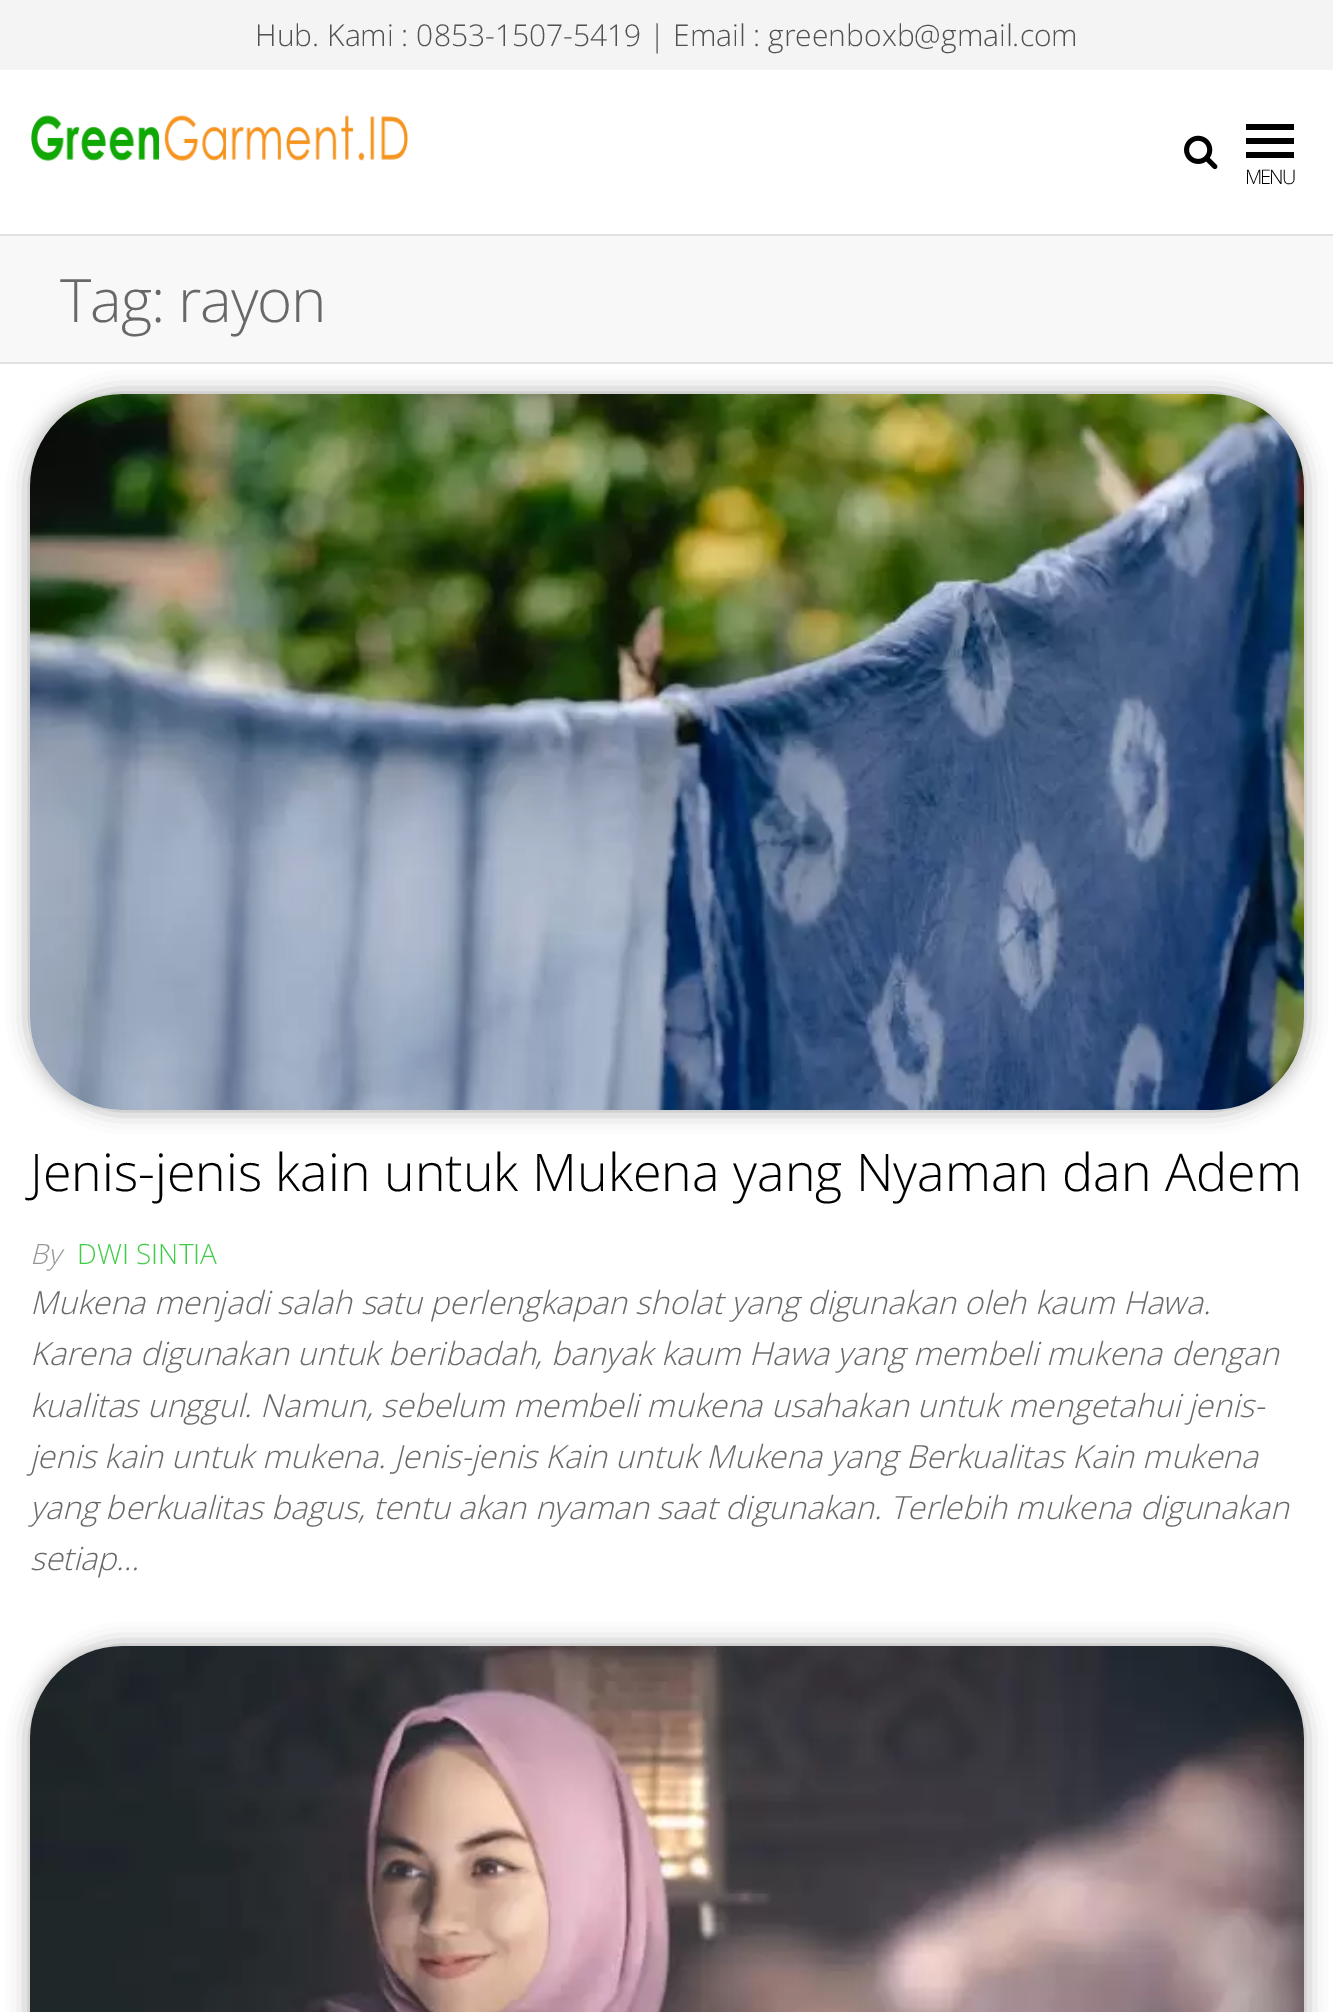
%!PS-Adobe-3.0
%%BoundingBox: 0 0 1333 2012
%%LanguageLevel: 3
%%Pages: 1
%%EndComments
%%BeginProlog
/m { moveto } bind def
/fn { [ exch dup neg 0 0 3 -1 roll 0 0 ] selectfont } def
/tx { moveto show } def
/bx { rectfill } def
/al { dup .setfillconstantalpha .setstrokeconstantalpha } def
/rr { 5 dict begin { /r /h /w /y /x } { exch def } forall
  x r add y moveto x w add y 2 copy h add r arct x w add y h add x 1 index r arct
  x y h add x y r arct x y 2 copy exch w add exch r arct closepath end } def
/sh { 12 dict begin { /a /b /q /h /w /y /x } { exch def } forall gsave /was 0 def
  9 -2 -9 { dup b mul 4 div /e exch def 1 sub .425 mul 2.718 exch exp 1 add a .99 .min exch div /now exch def
    1 1 now sub 1 was sub div sub al /was now def
    w h .min e 2 mul add 0 gt { x e sub y e sub w e 2 mul add h e 2 mul add
      q e add b .6 mul add w h .min 2 div e add .min 0 .max rr fill } if } for grestore end } def
/im { 5 dict begin { /h /w /y /x /name } { exch def } forall
  gsave x y translate w h scale
  w h 8 [w 0 0 h 0 0] name (r) file false 3 colorimage grestore end } def
%%EndProlog
%%BeginSetup
<< /PageSize [1333 2012] /PageUsesTransparency true >> setpagedevice
%%EndSetup
%%Page: 1 1
0 .pushpdf14devicefilter
0 2012 translate 1 -1 scale
4 setmiterlimit
1 setgray
0 0 1333 2012 bx
0.957 setgray
0 0 1333 70 bx
/OpenSans-Light 30 fn
0.318 setgray
(Hub. Kami : 0853-1507-5419 | Email : greenboxb@gmail.com) 255 46 tx
0.886 setgray
0 234 1333 2 bx
(image0.raw) 31 115 377 46 im
(image1.raw) 1184 135 34 35 im
0 setgray
1246 124 48 6 bx
1246 138 48 6 bx
1246 152 48 6 bx
/OpenSans-Light 20 fn
1245 184 m -2 0 (MENU) ashow
0.973 setgray
0 236 1333 126 bx
0.886 setgray
0 362 1333 2 bx
/OpenSans-Light 60 fn
0.408 setgray
60 322 m -1.25 0 (Tag: rayon) ashow
0 setgray
30 394 1274 716 92 11 0.35 sh
(image2.raw) 30 394 1274 716 im
/OpenSans-Light 52 fn
(Jenis-jenis kain untuk Mukena yang Nyaman dan Adem) 30 1191 tx
/OpenSans-LightItalic 28 fn
0.584 setgray
(By) 30 1264 tx
/OpenSans-Light 28 fn
0.247 0.8 0.275 setrgbcolor
(DWI SINTIA) 77 1264 tx
/OpenSans-LightItalic 32 fn
0.408 setgray
(Mukena menjadi salah satu perlengkapan sholat yang digunakan oleh kaum Hawa.) 30 1314 tx
(Karena digunakan untuk beribadah, banyak kaum Hawa yang membeli mukena dengan) 30 1365 tx
(kualitas unggul. Namun, sebelum membeli mukena usahakan untuk mengetahui jenis-) 30 1417 tx
(jenis kain untuk mukena. Jenis-jenis Kain untuk Mukena yang Berkualitas Kain mukena) 30 1468 tx
(yang berkualitas bagus, tentu akan nyaman saat digunakan. Terlebih mukena digunakan) 30 1519 tx
(setiap…) 30 1570 tx
0 setgray
30 1646 1274 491 92 11 0.35 sh
(image3.raw) 30 1646 1274 366 im
.poppdf14devicefilter showpage
%%EOF
